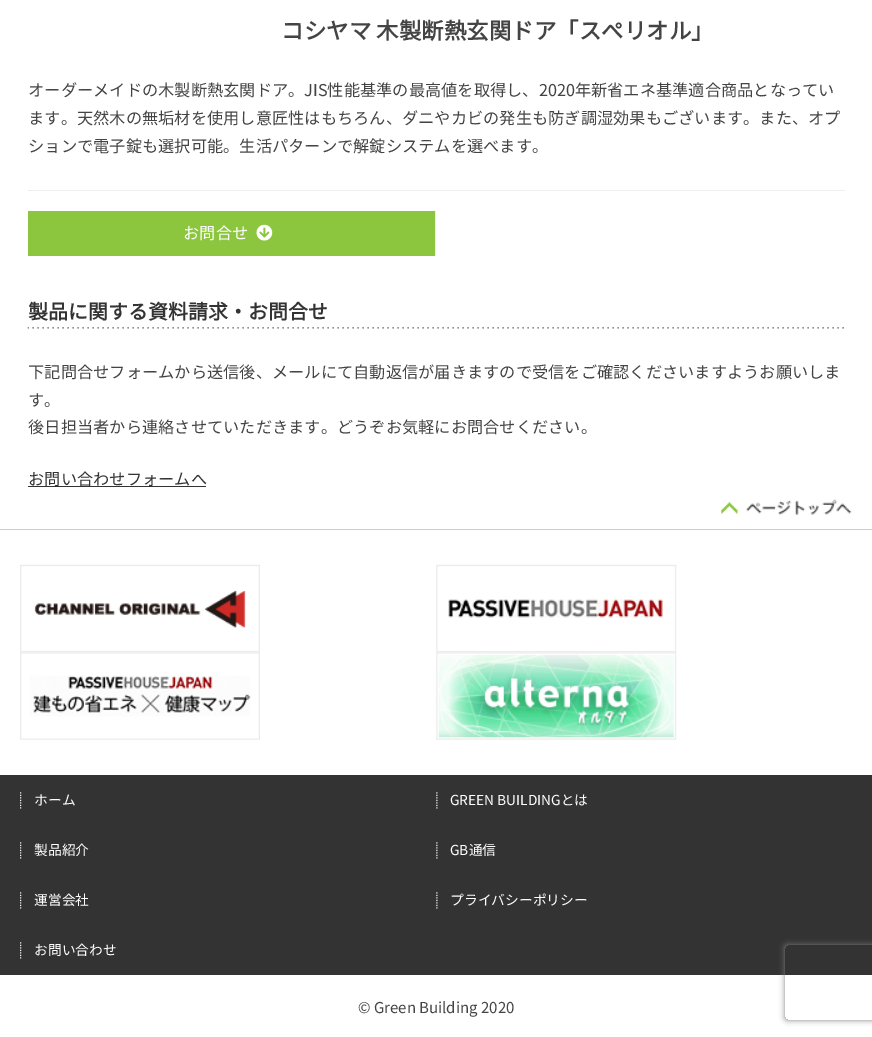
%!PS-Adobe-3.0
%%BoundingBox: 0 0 872 1037
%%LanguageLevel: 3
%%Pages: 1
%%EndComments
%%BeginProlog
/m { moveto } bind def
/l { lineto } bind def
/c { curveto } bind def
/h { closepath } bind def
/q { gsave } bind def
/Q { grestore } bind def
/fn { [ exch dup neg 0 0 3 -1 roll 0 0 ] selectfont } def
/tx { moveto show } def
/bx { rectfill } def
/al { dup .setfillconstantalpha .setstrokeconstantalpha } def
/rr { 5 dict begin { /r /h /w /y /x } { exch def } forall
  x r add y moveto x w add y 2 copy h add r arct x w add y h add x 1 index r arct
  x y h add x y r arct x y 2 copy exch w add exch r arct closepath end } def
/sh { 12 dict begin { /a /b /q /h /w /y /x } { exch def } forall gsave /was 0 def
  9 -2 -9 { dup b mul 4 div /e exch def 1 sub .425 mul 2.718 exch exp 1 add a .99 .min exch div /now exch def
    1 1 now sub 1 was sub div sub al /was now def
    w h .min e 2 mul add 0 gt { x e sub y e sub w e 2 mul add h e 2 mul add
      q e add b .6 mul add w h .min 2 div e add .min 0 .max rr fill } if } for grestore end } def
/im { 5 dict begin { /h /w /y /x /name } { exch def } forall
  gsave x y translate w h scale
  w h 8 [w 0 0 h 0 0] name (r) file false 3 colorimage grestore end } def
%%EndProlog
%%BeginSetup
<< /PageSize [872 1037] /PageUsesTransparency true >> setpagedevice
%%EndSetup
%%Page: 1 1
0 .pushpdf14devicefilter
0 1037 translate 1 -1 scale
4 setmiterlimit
1 setgray
0 0 872 1037 bx
/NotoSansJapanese-Bold 22.5 fn
0.267 setgray
(コシヤマ 木製断熱玄関ドア「スペリオル」) 281 39 tx
0.933 setgray
28 190 817 1 bx
/NotoSansJapanese-Regular 16.25 fn
0.267 setgray
(オーダーメイドの木製断熱玄関ドア。JIS性能基準の最高値を取得し、2020年新省エネ基準適合商品となってい) 28 96 tx
(ます。天然木の無垢材を使用し意匠性はもちろん、ダニやカビの発生も防ぎ調湿効果もございます。また、オプ) 28 124 tx
(ションで電子錠も選択可能。生活パターンで解錠システムを選べます。) 28 152 tx
0.549 0.776 0.243 setrgbcolor
28 211 407 45 bx
0.933 setgray
435 211 1 45 bx
1 setgray
(お問合せ) 183 239 tx
(image0.raw) 256 224 17 17 im
(image1.raw) 27 327 817 2 im
/NotoSansJapanese-Bold 20 fn
0.2 setgray
(製品に関する資料請求・お問合せ) 28 319 tx
/NotoSansJapanese-Regular 16.25 fn
0.267 setgray
(下記問合せフォームから送信後、メールにて自動返信が届きますので受信をご確認くださいますようお願いしま) 28 378 tx
(す。) 28 406 tx
(後日担当者から連絡させていただきます。どうぞお気軽にお問合せください。) 28 433 tx
0.2 setgray
28 486 178 1 bx
(お問い合わせフォームへ) 28 485 tx
(image2.raw) 721 499 131 16 im
0.8 setgray
0 529 872 1 bx
(image3.raw) 20 564 240 89 im
(image4.raw) 436 564 241 89 im
(image5.raw) 20 652 240 88 im
(image6.raw) 436 652 241 88 im
0.2 setgray
0 775 872 200 bx
(image7.raw) 20 792 2 17 im
/NotoSansJapanese-Regular 13.75 fn
1 setgray
(ホーム) 34 805 tx
(image8.raw) 436 792 2 17 im
(GREEN BUILDINGとは) 450 805 tx
(image7.raw) 20 842 2 17 im
(製品紹介) 34 855 tx
(image8.raw) 436 842 2 17 im
(GB通信) 450 855 tx
(image7.raw) 20 892 2 17 im
(運営会社) 34 905 tx
(image8.raw) 436 892 2 17 im
(プライバシーポリシー) 450 905 tx
(image7.raw) 20 942 2 17 im
(お問い合わせ) 34 955 tx
/NotoSansJapanese-Regular 15 fn
0.267 setgray
(© Green Building 2020) 358 1013 tx
q
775 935 m 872 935 l 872 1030 l 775 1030 l h 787.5 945 m 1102.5 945 l 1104 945 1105 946 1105 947.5 c 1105 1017.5 l 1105 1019 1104 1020 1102.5 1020 c 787.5 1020 l 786 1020 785 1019 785 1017.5 c 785 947.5 l 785 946 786 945 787.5 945 c h eoclip newpath
0.502 setgray
785 945 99 75 2.5 3 1 sh
Q
.poppdf14devicefilter showpage
%%EOF
